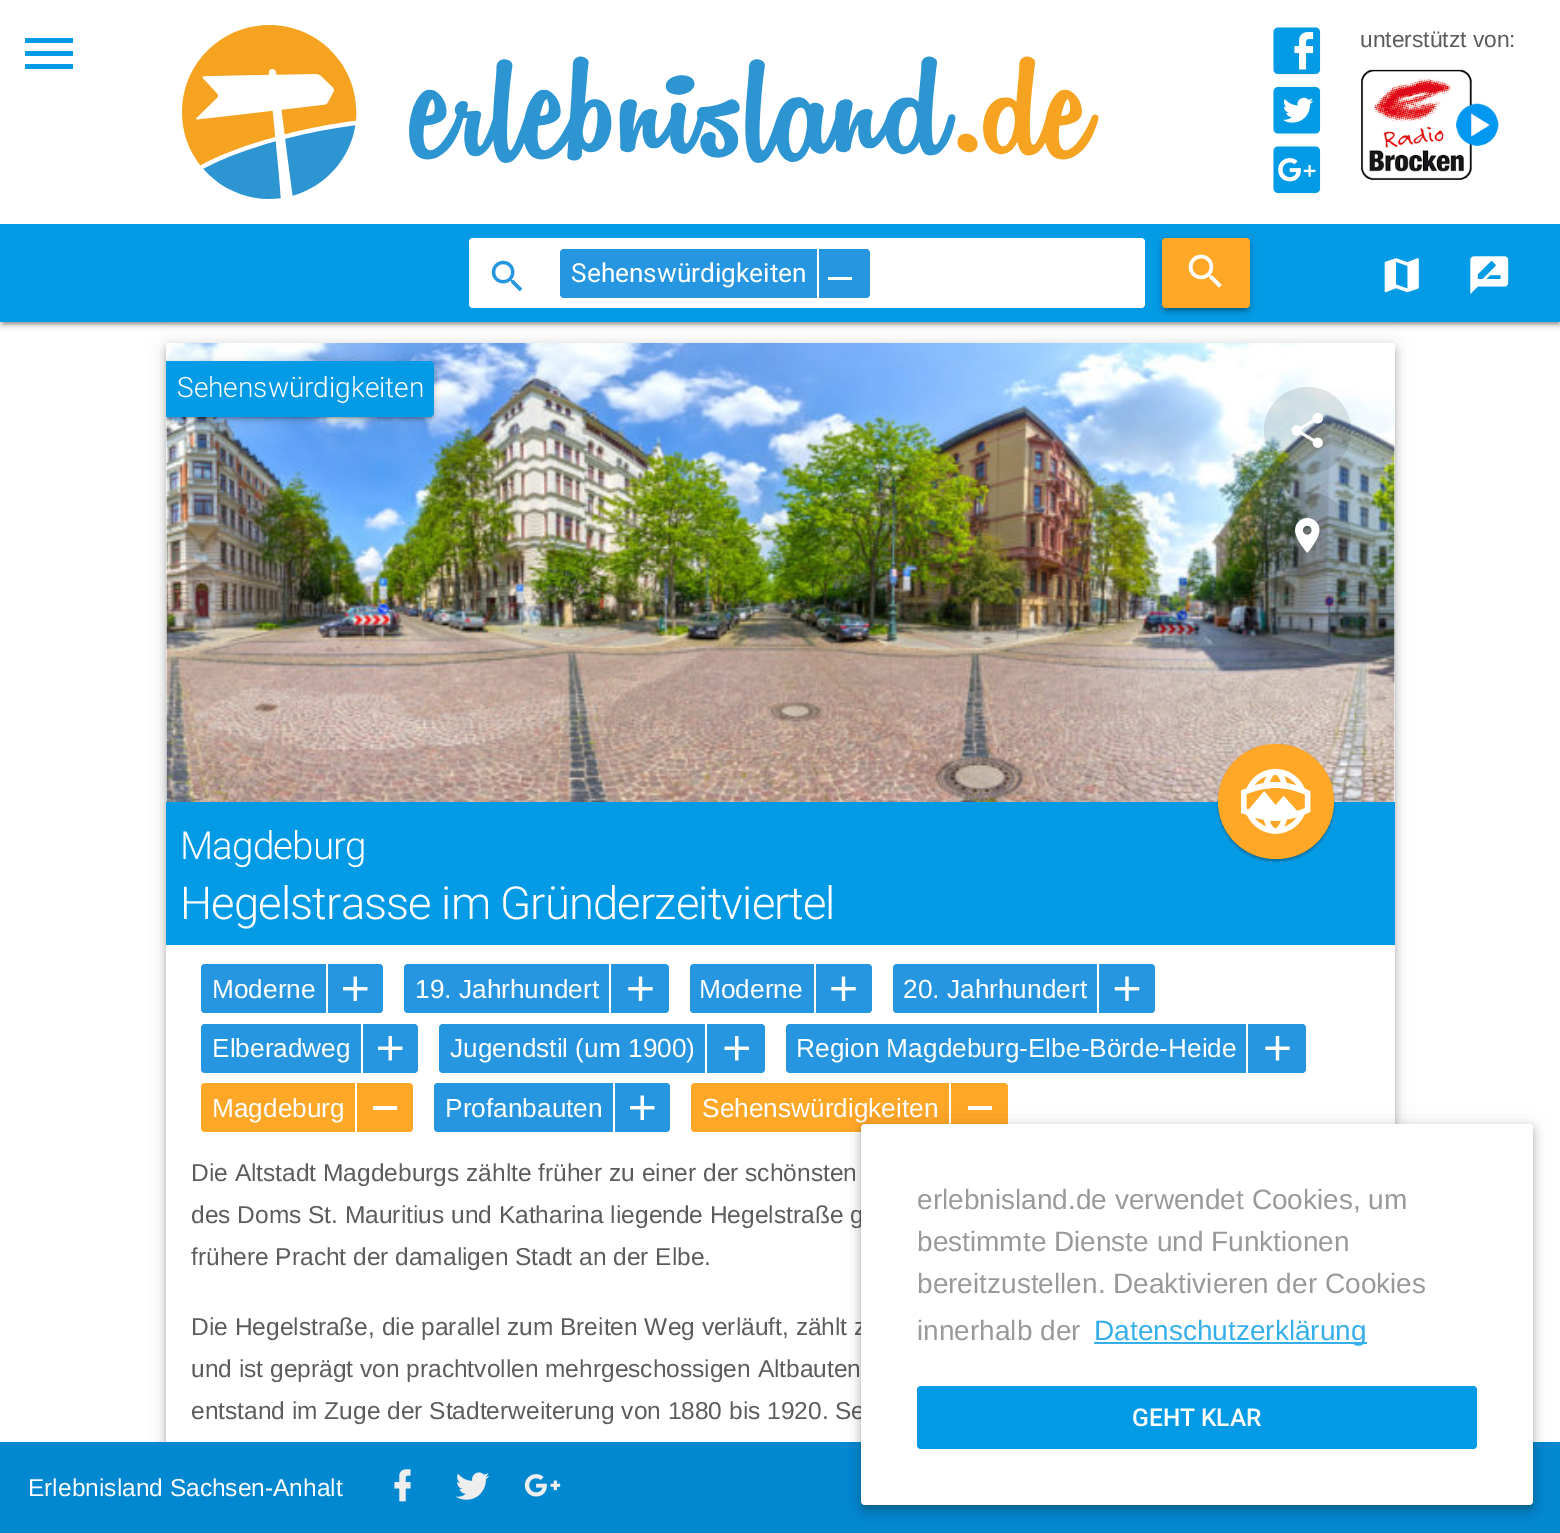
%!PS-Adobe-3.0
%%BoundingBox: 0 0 1560 1533
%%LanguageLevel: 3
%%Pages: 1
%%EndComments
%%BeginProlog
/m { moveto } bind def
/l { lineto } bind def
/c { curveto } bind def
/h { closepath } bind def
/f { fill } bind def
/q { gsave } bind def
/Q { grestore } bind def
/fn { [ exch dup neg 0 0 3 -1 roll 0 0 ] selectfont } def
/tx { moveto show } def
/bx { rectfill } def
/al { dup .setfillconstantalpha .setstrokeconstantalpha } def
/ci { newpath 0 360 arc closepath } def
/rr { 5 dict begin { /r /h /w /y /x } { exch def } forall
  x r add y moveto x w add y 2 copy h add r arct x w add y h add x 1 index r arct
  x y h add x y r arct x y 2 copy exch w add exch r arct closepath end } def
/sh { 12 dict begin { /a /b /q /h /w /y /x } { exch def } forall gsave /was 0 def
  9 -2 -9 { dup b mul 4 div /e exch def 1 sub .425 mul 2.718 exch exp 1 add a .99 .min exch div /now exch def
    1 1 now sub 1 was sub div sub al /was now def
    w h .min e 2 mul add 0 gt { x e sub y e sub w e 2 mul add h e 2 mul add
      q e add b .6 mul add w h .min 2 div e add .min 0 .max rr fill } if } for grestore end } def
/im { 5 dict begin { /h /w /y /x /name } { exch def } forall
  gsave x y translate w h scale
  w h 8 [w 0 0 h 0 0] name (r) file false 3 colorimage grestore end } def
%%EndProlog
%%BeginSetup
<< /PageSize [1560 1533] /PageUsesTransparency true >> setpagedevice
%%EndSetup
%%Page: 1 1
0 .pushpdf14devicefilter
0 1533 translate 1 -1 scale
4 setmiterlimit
1 setgray
0 0 1560 1533 bx
0 setgray
0 2 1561 322 0 4.5 0.12 sh
4 9 1554 315 0 1 0.2 sh
0 4 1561 322 0 2 0.14 sh
166 345 1229 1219 4 9 0.12 sh
0.012 0.608 0.898 setrgbcolor
0 224 1560 98 bx
1 setgray
0 0 1560 224 bx
0.012 0.608 0.898 setrgbcolor
25 38 m 73 38 l 73 43 l 25 43 l h 25 51 m 73 51 l 73 56 l 25 56 l h 25 64 m 73 64 l 73 69 l 25 69 l h f
(image0.raw) 182 25 917 174 im
(image1.raw) 1273 27 48 48 im
(image2.raw) 1273 86 48 48 im
(image3.raw) 1273 146 48 48 im
/LiberationSans-Regular 22.75 fn
0.361 setgray
(unterstützt von:) 1360 47 tx
(image4.raw) 1361 69 138 111 im
1 setgray
469 238 676 70 4 rr f
(image5.raw) 491 260 32 32 im
0.145 0.588 0.875 setrgbcolor
560 249 310 49 4 rr f
1 setgray
817 249 2 49 bx
/Roboto-Regular 26.25 fn
(Sehenswürdigkeiten) 571 282 tx
828 277 24 3 bx
0 setgray
1162 240 88 70 4 4.5 0.12 sh
1166 247 80 63 0 1 0.2 sh
1162 242 88 70 4 2 0.14 sh
1 0.655 0.149 setrgbcolor
1162 238 88 70 4 rr f
(image6.raw) 1188 254 34 34 im
(image7.raw) 1384 258 35 35 im
(image8.raw) 1470 256 39 38 im
0 setgray
168 348 1225 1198 2 3.5 0.2 sh
166 350 1229 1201 4 4.5 0.14 sh
1 setgray
170 343 m 1391 343 l 1393 343 1395 345 1395 347 c 1395 1533 l 166 1533 l 166 347 l 166 345 168 343 170 343 c h f
(image9.raw) 166 343 1229 459 im
q
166 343 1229 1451 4 rr clip newpath
0 setgray
166 362 268 56 4 4.5 0.12 sh
Q
0 setgray
170 369 261 49 0 1 0.2 sh
q
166 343 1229 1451 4 rr clip newpath
166 364 268 56 4 2 0.14 sh
Q
0.012 0.608 0.898 setrgbcolor
166 361 m 430 361 l 432 361 434 363 434 365 c 434 413 l 434 415 432 417 430 417 c 166 417 l h f
/Roboto-Light 28 fn
1 setgray
(Sehenswürdigkeiten) 177 397 tx
0.1 al
0 setgray
1307.5 430.5 43.5 ci f
1 al
(image10.raw) 1291 413 32 35 im
0.1 al
1307.5 535.5 43.5 ci f
1 al
(image11.raw) 1295 518 25 35 im
0.012 0.608 0.898 setrgbcolor
166 802 1229 143 bx
0 setgray
1218 746 116 115 57.5 1 0.24 sh
1218 746 116 115 57.5 1.5 0.12 sh
1 0.655 0.149 setrgbcolor
1218 744 116 115 57.5 rr f
(image12.raw) 1241 768 70 66 im
/Roboto-Light 38.5 fn
1 setgray
180 859 m -0.9 0 (Magdeburg) ashow
/Roboto-Light 45.5 fn
180 919 m -0.9 0 (Hegelstrasse im Gründerzeitviertel) ashow
0.145 0.588 0.875 setrgbcolor
201 964 182 49 4 rr f
1 setgray
326 964 2 49 bx
/LiberationSans-Regular 26.25 fn
(Moderne) 212 998 tx
(image13.raw) 343 976 25 25 im
0.145 0.588 0.875 setrgbcolor
404 964 265 49 4 rr f
1 setgray
609 964 2 49 bx
(19. Jahrhundert) 415 998 tx
(image14.raw) 628 976 25 25 im
0.145 0.588 0.875 setrgbcolor
690 964 182 49 4 rr f
1 setgray
814 964 2 49 bx
(Moderne) 699 998 tx
(image14.raw) 831 976 25 25 im
0.145 0.588 0.875 setrgbcolor
893 964 262 49 4 rr f
1 setgray
1097 964 2 49 bx
(20. Jahrhundert) 903 998 tx
(image15.raw) 1114 976 26 25 im
0.145 0.588 0.875 setrgbcolor
201 1024 217 49 4 rr f
1 setgray
361 1024 2 49 bx
(Elberadweg) 212 1057 tx
(image16.raw) 378 1036 25 25 im
0.145 0.588 0.875 setrgbcolor
439 1024 326 49 4 rr f
1 setgray
705 1024 2 49 bx
(Jugendstil \(um 1900\)) 450 1057 tx
(image17.raw) 724 1036 25 25 im
0.145 0.588 0.875 setrgbcolor
786 1024 520 49 4 rr f
1 setgray
1246 1024 2 49 bx
(Region Magdeburg-Elbe-Börde-Heide) 796 1057 tx
(image18.raw) 1265 1036 25 25 im
1 0.655 0.149 setrgbcolor
201 1083 212 49 4 rr f
1 setgray
355 1083 2 49 bx
(Magdeburg) 212 1117 tx
373 1106 24 4 bx
0.145 0.588 0.875 setrgbcolor
434 1083 236 49 4 rr f
1 setgray
613 1083 2 49 bx
(Profanbauten) 445 1117 tx
(image13.raw) 630 1095 25 25 im
1 0.655 0.149 setrgbcolor
691 1083 317 49 4 rr f
1 setgray
949 1083 2 49 bx
(Sehenswürdigkeiten) 702 1117 tx
968 1106 24 4 bx
/LiberationSans-Regular 24.5 fn
0.361 setgray
(Die Altstadt Magdeburgs zählte früher zu einer der schönsten) 191 1181 tx
(des Doms St. Mauritius und Katharina liegende Hegelstraße g) 191 1223 tx
(frühere Pracht der damaligen Stadt an der Elbe.) 191 1265 tx
(Die Hegelstraße, die parallel zum Breiten Weg verläuft, zählt z) 191 1335 tx
(und ist geprägt von prachtvollen mehrgeschossigen Altbauten) 191 1377 tx
(entstand im Zuge der Stadterweiterung von 1880 bis 1920. Se) 191 1419 tx
0.008 0.533 0.82 setrgbcolor
0 1442 1560 91 bx
1 setgray
(Erlebnisland Sachsen-Anhalt) 28 1496 tx
(image19.raw) 394 1469 17 33 im
(image20.raw) 456 1472 34 28 im
(image21.raw) 524 1474 37 23 im
0 setgray
863 1129 668 378 2 3.5 0.2 sh
861 1125 672 382 4 9 0.12 sh
861 1131 672 381 4 4.5 0.14 sh
1 setgray
861 1124 672 381 4 rr f
/LiberationSans-Regular 28 fn
0.6 setgray
(erlebnisland.de verwendet Cookies, um) 917 1209 tx
(bestimmte Dienste und Funktionen) 917 1251 tx
(bereitzustellen. Deaktivieren der Cookies) 917 1293 tx
(innerhalb der) 917 1340 tx
0.208 0.686 0.918 setrgbcolor
1094 1342 273 2 bx
(Datenschutzerklärung) 1094 1340 tx
0.012 0.608 0.898 setrgbcolor
917 1386 560 63 4 rr f
/Roboto-Medium 24.5 fn
1 setgray
(GEHT KLAR) 1132 1426 tx
.poppdf14devicefilter showpage
%%EOF
